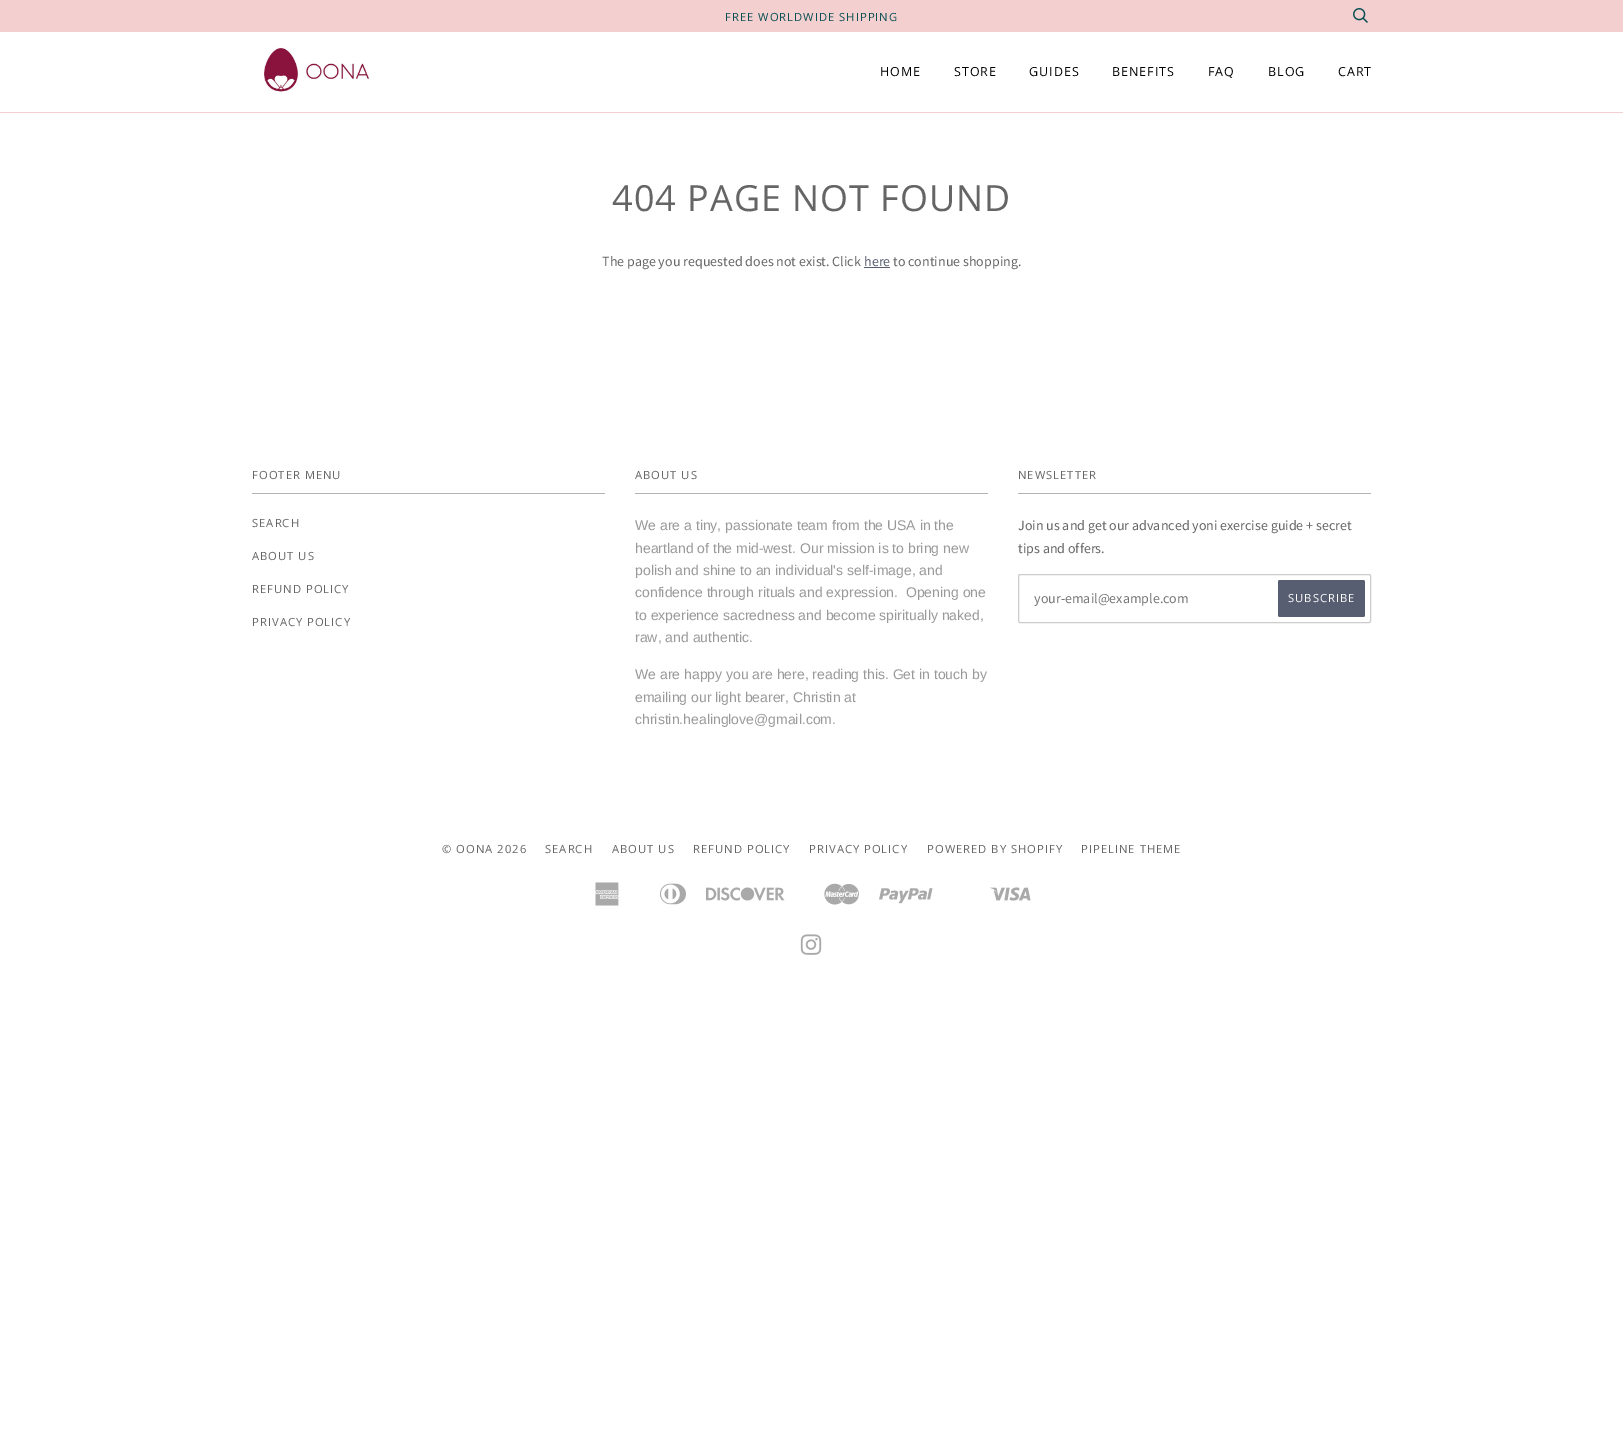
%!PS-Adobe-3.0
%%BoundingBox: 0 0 1623 1447
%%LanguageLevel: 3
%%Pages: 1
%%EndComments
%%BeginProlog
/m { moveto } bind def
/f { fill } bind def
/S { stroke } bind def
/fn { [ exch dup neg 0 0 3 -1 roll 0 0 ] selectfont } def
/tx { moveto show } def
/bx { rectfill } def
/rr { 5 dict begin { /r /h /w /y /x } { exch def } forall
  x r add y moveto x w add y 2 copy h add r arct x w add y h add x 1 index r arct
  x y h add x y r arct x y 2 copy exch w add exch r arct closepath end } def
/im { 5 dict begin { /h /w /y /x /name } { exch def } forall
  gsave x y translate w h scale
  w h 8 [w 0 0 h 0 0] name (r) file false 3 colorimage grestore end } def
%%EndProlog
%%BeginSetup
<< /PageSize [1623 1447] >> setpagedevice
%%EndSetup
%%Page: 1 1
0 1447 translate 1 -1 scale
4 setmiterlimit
1 setgray
0 0 1623 1447 bx
0.953 0.812 0.812 setrgbcolor
0 0 1623 32 bx
/OpenSans-Regular 11.25 fn
0.035 0.31 0.329 setrgbcolor
725 21 m 1 0 (FREE WORLDWIDE SHIPPING) ashow
(image0.raw) 1353 8 15 15 im
0.953 0.812 0.812 setrgbcolor
0 112 1623 1 bx
(image1.raw) 264 47 106 45 im
/OpenSans-Regular 12.5 fn
0 setgray
880 76 m 1 0 (HOME) ashow
954 76 m 1 0 (STORE) ashow
1029 76 m 1 0 (GUIDES) ashow
1112 76 m 1 0 (BENEFITS) ashow
1208 76 m 1 0 (FAQ) ashow
1268 76 m 1 0 (BLOG) ashow
1338 76 m 1 0 (CART) ashow
/OpenSans-Regular 36 fn
0.396 setgray
612 211 m 1 0 (404 PAGE NOT FOUND) ashow
/SourceSansPro-Regular 14 fn
(The page you requested does not exist. Click) 602 266 tx
0.345 0.369 0.443 setrgbcolor
(here) 864 266 tx
864 267 26 1 bx
0.396 setgray
(to continue shopping.) 893 266 tx
/OpenSans-Regular 11.25 fn
252 479 m 1 0 (FOOTER MENU) ashow
0.698 setgray
252 493 353 1 bx
0.396 setgray
252 527 m 1 0 (SEARCH) ashow
252 560 m 1 0 (ABOUT US) ashow
252 593 m 1 0 (REFUND POLICY) ashow
252 626 m 1 0 (PRIVACY POLICY) ashow
635 479 m 1 0 (ABOUT US) ashow
0.698 setgray
635 493 353 1 bx
/LiberationSans-Regular 14 fn
0.6 setgray
(We are a tiny, passionate team from the USA in the) 635 530 tx
(heartland of the mid-west. Our mission is to bring new) 635 553 tx
(polish and shine to an individual's self-image, and) 635 575 tx
(confidence through rituals and expression.  Opening one) 635 597 tx
(to experience sacredness and become spiritually naked,) 635 620 tx
(raw, and authentic.) 635 642 tx
(We are happy you are here, reading this. Get in touch by) 635 679 tx
(emailing our light bearer, Christin at) 635 702 tx
(christin.healinglove@gmail.com.) 635 724 tx
/OpenSans-Regular 11.25 fn
0.396 setgray
1018 479 m 1 0 (NEWSLETTER) ashow
0.698 setgray
1018 493 353 1 bx
/SourceSansPro-Regular 14 fn
0.396 setgray
(Join us and get our advanced yoni exercise guide + secret) 1018 530 tx
(tips and offers.) 1018 553 tx
0.8 setgray
1018.5 574.5 352 48 1.5 rr S
0.459 setgray
(your-email@example.com) 1034 603 tx
0.345 0.369 0.443 setrgbcolor
1278 580 87 37 2 rr f
/OpenSans-Regular 11.25 fn
1 setgray
1288 602 m 1 0 (SUBSCRIBE) ashow
0.396 setgray
442 853 m 1 0 (© OONA 2026) ashow
545 853 m 1 0 (SEARCH) ashow
612 853 m 1 0 (ABOUT US) ashow
693 853 m 1 0 (REFUND POLICY) ashow
809 853 m 1 0 (PRIVACY POLICY) ashow
927 853 m 1 0 (POWERED BY SHOPIFY) ashow
1081 853 m 1 0 (PIPELINE THEME) ashow
(image2.raw) 595 882 24 24 im
(image3.raw) 660 883 26 22 im
(image4.raw) 706 887 79 14 im
(image5.raw) 824 883 35 22 im
(image6.raw) 879 888 54 16 im
(image7.raw) 990 887 41 14 im
(image8.raw) 800 934 22 21 im
showpage
%%EOF
